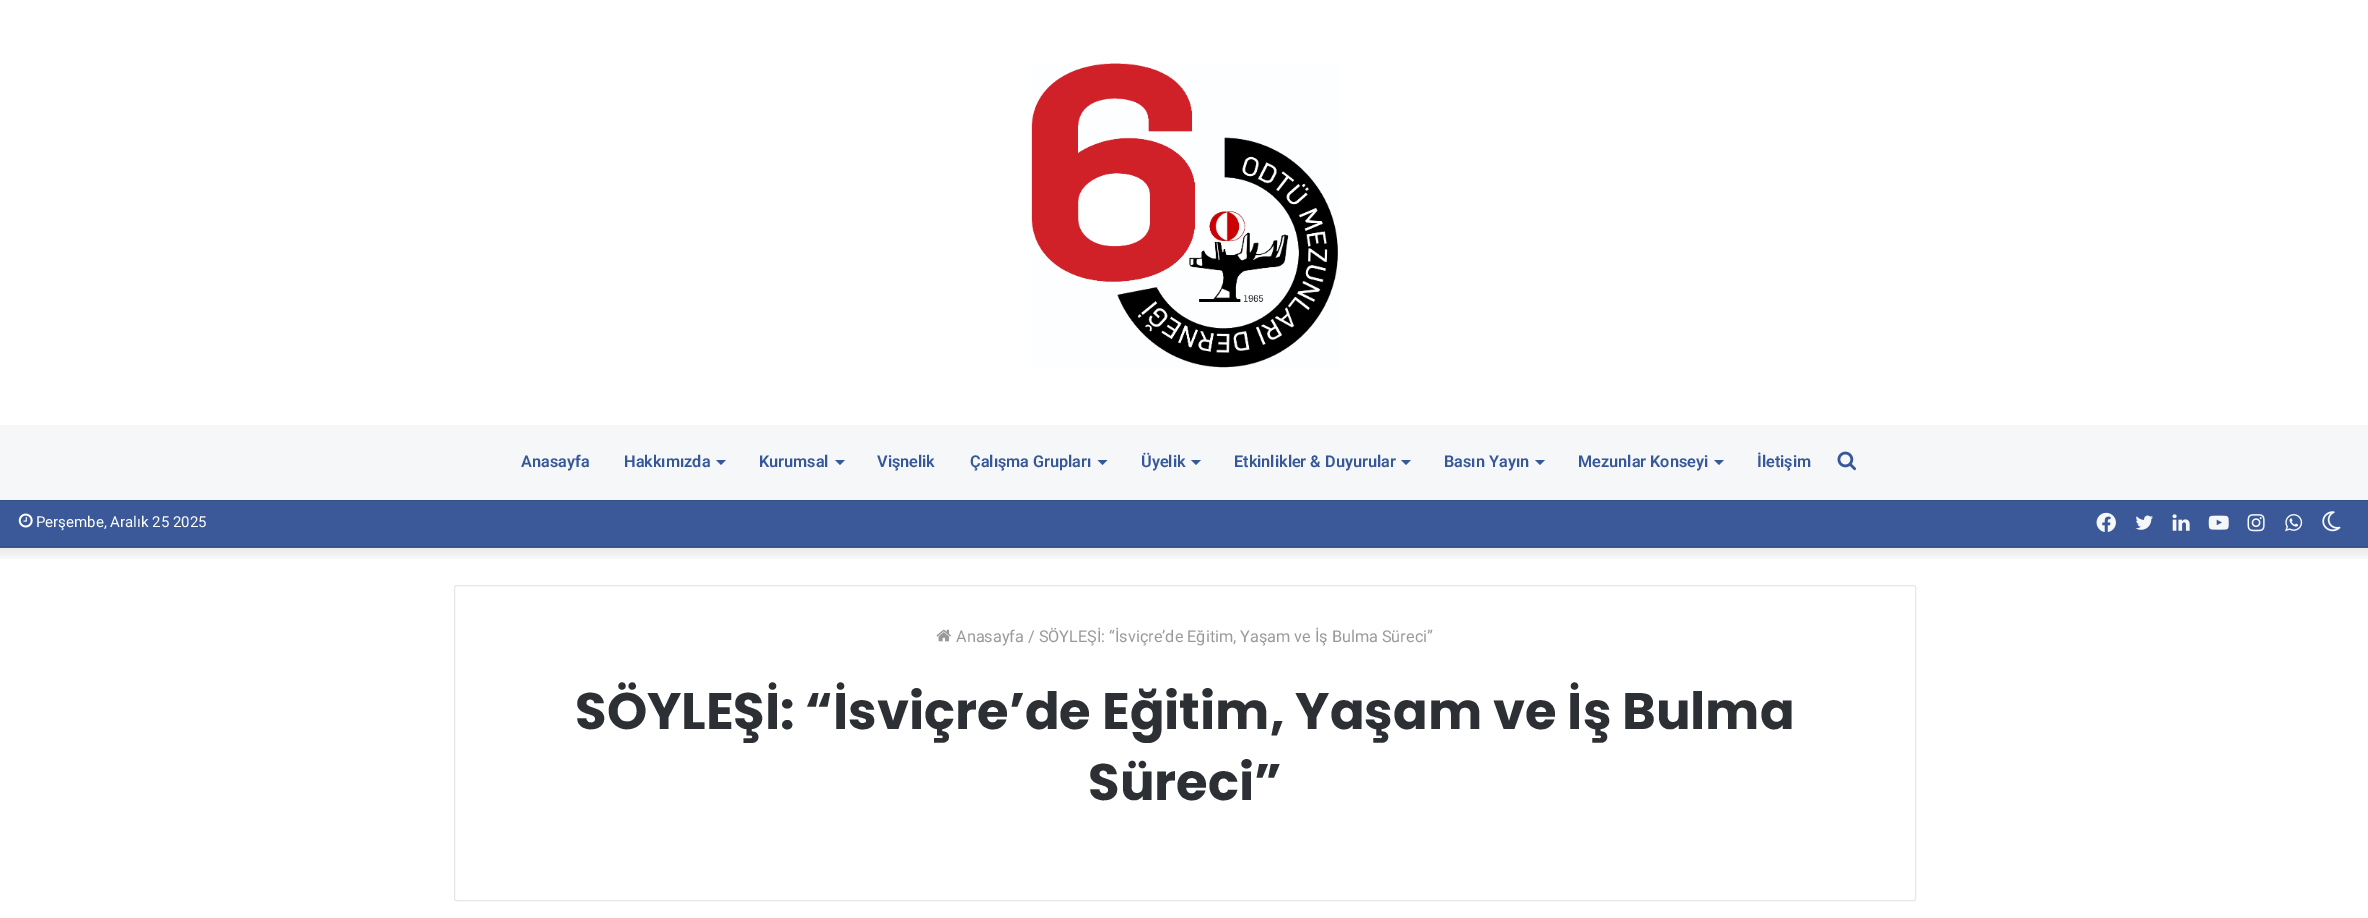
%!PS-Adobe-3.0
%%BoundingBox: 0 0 2368 918
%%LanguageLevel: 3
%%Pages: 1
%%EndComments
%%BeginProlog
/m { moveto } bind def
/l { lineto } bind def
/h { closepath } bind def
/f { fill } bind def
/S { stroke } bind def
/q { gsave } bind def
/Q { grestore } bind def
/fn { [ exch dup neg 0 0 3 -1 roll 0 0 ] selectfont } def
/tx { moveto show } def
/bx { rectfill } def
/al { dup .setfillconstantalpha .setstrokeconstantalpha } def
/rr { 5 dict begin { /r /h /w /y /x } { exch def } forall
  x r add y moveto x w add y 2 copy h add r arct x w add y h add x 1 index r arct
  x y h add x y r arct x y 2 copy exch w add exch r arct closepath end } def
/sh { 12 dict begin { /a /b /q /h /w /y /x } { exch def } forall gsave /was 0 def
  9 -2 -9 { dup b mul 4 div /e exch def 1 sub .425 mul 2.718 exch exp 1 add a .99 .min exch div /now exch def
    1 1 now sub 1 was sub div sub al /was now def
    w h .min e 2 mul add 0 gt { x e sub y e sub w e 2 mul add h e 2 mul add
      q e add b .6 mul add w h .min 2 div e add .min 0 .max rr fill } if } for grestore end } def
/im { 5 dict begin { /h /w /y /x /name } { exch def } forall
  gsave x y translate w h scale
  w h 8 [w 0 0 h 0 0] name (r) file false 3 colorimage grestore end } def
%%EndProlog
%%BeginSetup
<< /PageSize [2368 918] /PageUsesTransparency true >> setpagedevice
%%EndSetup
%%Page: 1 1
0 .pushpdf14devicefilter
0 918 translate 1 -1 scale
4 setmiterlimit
1 setgray
0 0 2368 918 bx
q
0 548 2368 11 rectclip
0 setgray
-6 -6 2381 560 0 6 0.1 sh
Q
(image0.raw) 1031 63 307 305 im
0.965 0.969 0.976 setrgbcolor
0 425 2368 75 bx
/Roboto-SemiBold 16.25 fn
0.212 0.345 0.6 setrgbcolor
(Anasayfa) 521 467 tx
(Hakkımızda) 624 467 tx
716 460 m 726 460 l 721 465 l h f
(Kurumsal) 759 467 tx
835 460 m 845 460 l 840 465 l h f
(Vişnelik) 877 467 tx
(Çalışma Grupları) 970 467 tx
1097.5 460 m 1107.5 460 l 1102.5 465 l h f
(Üyelik) 1141 467 tx
1191 460 m 1201 460 l 1196 465 l h f
(Etkinlikler & Duyurular) 1234 467 tx
1401 460 m 1411 460 l 1406 465 l h f
(Basın Yayın) 1444 467 tx
1535 460 m 1545 460 l 1540 465 l h f
(Mezunlar Konseyi) 1578 467 tx
1714 460 m 1724 460 l 1719 465 l h f
(İletişim) 1757 467 tx
(image1.raw) 1837 451 20 20 im
0.231 0.349 0.596 setrgbcolor
0 501 2368 47 bx
0.208 0.314 0.537 setrgbcolor
0 500 2368 1 bx
0 546 2368 1 bx
(image2.raw) 18 513 15 15 im
/Roboto-Regular 15 fn
1 setgray
(Perşembe, Aralık 25 2025) 36 527 tx
(image3.raw) 2096 512 20 20 im
(image4.raw) 2135 515 18 15 im
(image5.raw) 2172 514 18 17 im
(image6.raw) 2208 515 21 15 im
(image7.raw) 2247 514 18 18 im
(image8.raw) 2285 514 18 18 im
(image9.raw) 2322 511 19 21 im
0.902 setgray
454.5 585.5 1461 315 2 rr S
(image10.raw) 936 629 15 13 im
/Roboto-Regular 16.25 fn
0.6 setgray
(Anasayfa / SÖYLEŞİ: “İsviçre’de Eğitim, Yaşam ve İş Bulma Süreci”) 956 642 tx
/Poppins-Bold 51.25 fn
0.173 0.184 0.204 setrgbcolor
(SÖYLEŞİ: “İsviçre’de Eğitim, Yaşam ve İş Bulma) 575 729 tx
(Süreci”) 1088 800 tx
.poppdf14devicefilter showpage
%%EOF
